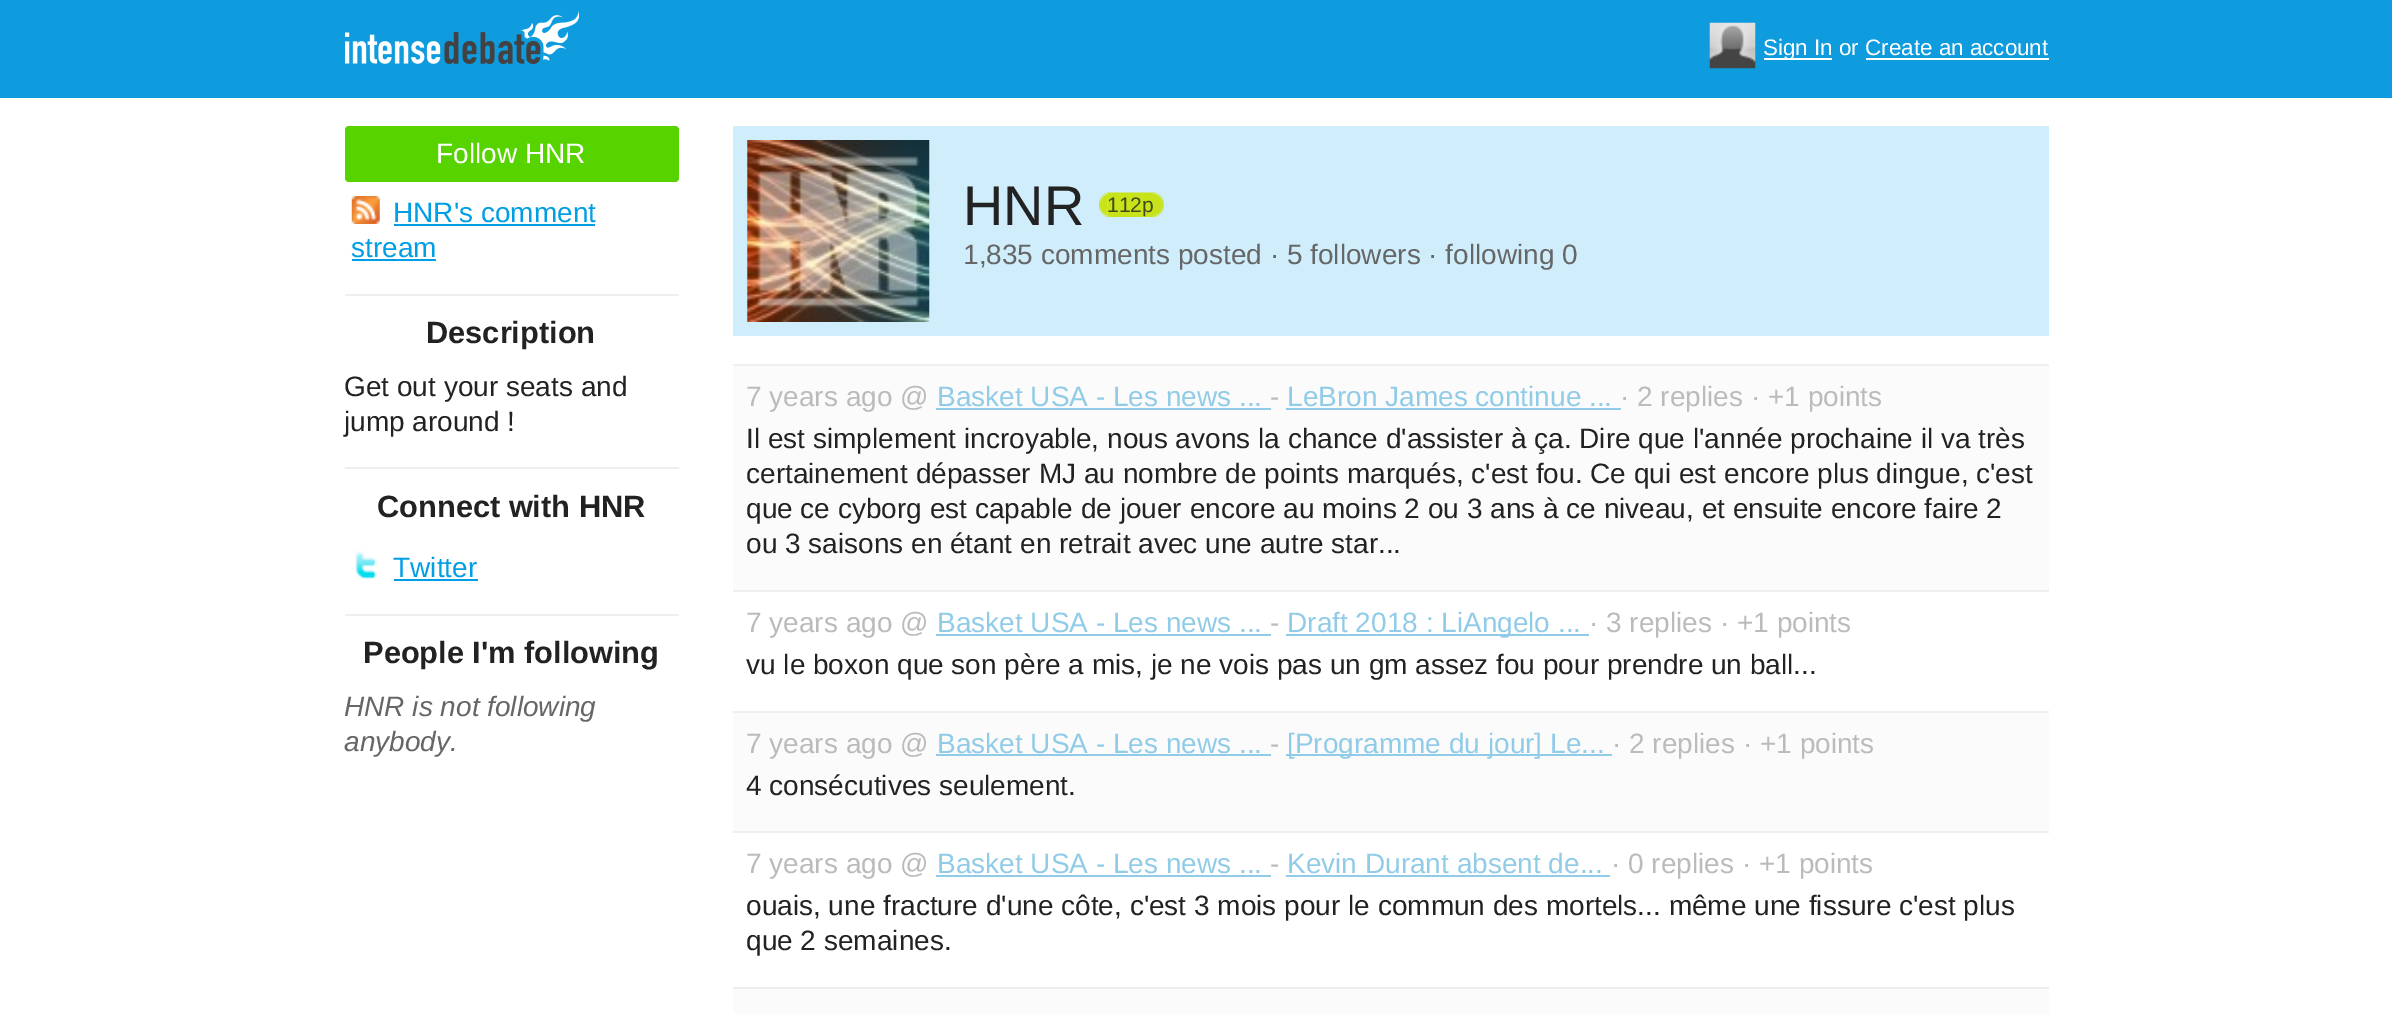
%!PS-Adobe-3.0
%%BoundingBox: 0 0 2392 1014
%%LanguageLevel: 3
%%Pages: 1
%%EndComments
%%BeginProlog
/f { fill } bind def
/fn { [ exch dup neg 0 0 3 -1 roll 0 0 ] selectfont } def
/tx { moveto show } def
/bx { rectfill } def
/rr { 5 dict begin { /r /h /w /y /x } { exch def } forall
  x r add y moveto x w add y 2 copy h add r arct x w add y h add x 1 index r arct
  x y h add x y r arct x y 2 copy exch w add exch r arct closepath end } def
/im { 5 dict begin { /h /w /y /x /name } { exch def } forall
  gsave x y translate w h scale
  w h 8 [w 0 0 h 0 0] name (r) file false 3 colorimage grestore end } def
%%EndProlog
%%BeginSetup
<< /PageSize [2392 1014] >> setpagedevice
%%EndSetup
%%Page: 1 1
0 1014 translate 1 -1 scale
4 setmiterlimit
1 setgray
0 0 2392 1014 bx
0.059 0.612 0.875 setrgbcolor
0 0 2392 98 bx
(image0.raw) 345 11 234 53 im
(image1.raw) 1709 22 47 47 im
1 setgray
1764 58 68 2 bx
/LiberationSans-Regular 22.4 fn
(Sign In or Create an account) 1763 55 tx
1866 58 183 2 bx
0.341 0.831 0 setrgbcolor
345 126 334 56 4 rr f
/LiberationSans-Regular 28 fn
1 setgray
(Follow HNR) 436 163 tx
(image2.raw) 351 196 29 28 im
0 0.62 0.894 setrgbcolor
(HNR's comment) 393 222 tx
394 224 201 2 bx
(stream) 351 257 tx
352 259 84 2 bx
0.937 setgray
345 294 334 2 bx
/LiberationSans-Bold 30.75 fn
0.133 setgray
(Description) 426 343 tx
/LiberationSans-Regular 28 fn
(Get out your seats and) 344 396 tx
(jump around !) 344 431 tx
0.937 setgray
345 467 334 2 bx
/LiberationSans-Bold 30.75 fn
0.133 setgray
(Connect with HNR) 377 517 tx
(image3.raw) 355 551 22 29 im
/LiberationSans-Regular 28 fn
0 0.62 0.894 setrgbcolor
(Twitter) 393 577 tx
394 579 84 2 bx
0.937 setgray
345 614 334 2 bx
/LiberationSans-Bold 30.75 fn
0.133 setgray
(People I'm following) 363 663 tx
/LiberationSans-Italic 28 fn
0.4 setgray
(HNR is not following) 344 716 tx
(anybody.) 344 751 tx
0.812 0.929 0.984 setrgbcolor
733 126 1316 210 bx
(image4.raw) 747 140 183 182 im
/LiberationSans-Regular 56 fn
0.133 setgray
(HNR) 963 225 tx
(image5.raw) 1099 192 9 25 im
(image6.raw) 1107 192 57 25 im
/LiberationSans-Regular 21 fn
0.259 0.294 0.125 setrgbcolor
(112p) 1107 212 tx
/LiberationSans-Regular 28 fn
0.4 setgray
(1,835 comments posted · 5 followers · following 0) 963 264 tx
0.984 setgray
733 366 1316 224 bx
0.937 setgray
733 364 1316 2 bx
0.733 setgray
(7 years ago @) 746 406 tx
0.565 0.796 0.91 setrgbcolor
(Basket USA - Les news ...) 937 406 tx
936 408 335 2 bx
0.733 setgray
(-) 1270 406 tx
0.565 0.796 0.91 setrgbcolor
(LeBron James continue ...) 1287 406 tx
1286 408 335 2 bx
0.733 setgray
(· 2 replies · +1 points) 1620 406 tx
0.133 setgray
(Il est simplement incroyable, nous avons la chance d'assister à ça. Dire que l'année prochaine il va très) 746 448 tx
(certainement dépasser MJ au nombre de points marqués, c'est fou. Ce qui est encore plus dingue, c'est) 746 483 tx
(que ce cyborg est capable de jouer encore au moins 2 ou 3 ans à ce niveau, et ensuite encore faire 2) 746 518 tx
(ou 3 saisons en étant en retrait avec une autre star...) 746 553 tx
0.937 setgray
733 590 1316 2 bx
0.733 setgray
(7 years ago @) 746 632 tx
0.565 0.796 0.91 setrgbcolor
(Basket USA - Les news ...) 937 632 tx
936 634 335 2 bx
0.733 setgray
(-) 1270 632 tx
0.565 0.796 0.91 setrgbcolor
1286 634 303 2 bx
(Draft 2018 : LiAngelo ...) 1287 632 tx
0.733 setgray
(· 3 replies · +1 points) 1589 632 tx
0.133 setgray
(vu le boxon que son père a mis, je ne vois pas un gm assez fou pour prendre un ball...) 746 674 tx
0.984 setgray
733 713 1316 118 bx
0.937 setgray
733 711 1316 2 bx
0.733 setgray
(7 years ago @) 746 753 tx
0.565 0.796 0.91 setrgbcolor
(Basket USA - Les news ...) 937 753 tx
936 754 335 2 bx
0.733 setgray
(-) 1270 753 tx
0.565 0.796 0.91 setrgbcolor
1286 754 326 2 bx
([Programme du jour] Le...) 1287 753 tx
0.733 setgray
(· 2 replies · +1 points) 1612 753 tx
0.133 setgray
(4 consécutives seulement.) 746 795 tx
0.937 setgray
733 831 1316 2 bx
0.733 setgray
(7 years ago @) 746 873 tx
0.565 0.796 0.91 setrgbcolor
(Basket USA - Les news ...) 937 873 tx
936 875 335 2 bx
0.733 setgray
(-) 1270 873 tx
0.565 0.796 0.91 setrgbcolor
(Kevin Durant absent de...) 1287 873 tx
1286 875 324 2 bx
0.733 setgray
(· 0 replies · +1 points) 1611 873 tx
0.133 setgray
(ouais, une fracture d'une côte, c'est 3 mois pour le commun des mortels... même une fissure c'est plus) 746 915 tx
(que 2 semaines.) 746 950 tx
0.984 setgray
733 989 1316 25 bx
0.937 setgray
733 987 1316 2 bx
showpage
%%EOF
